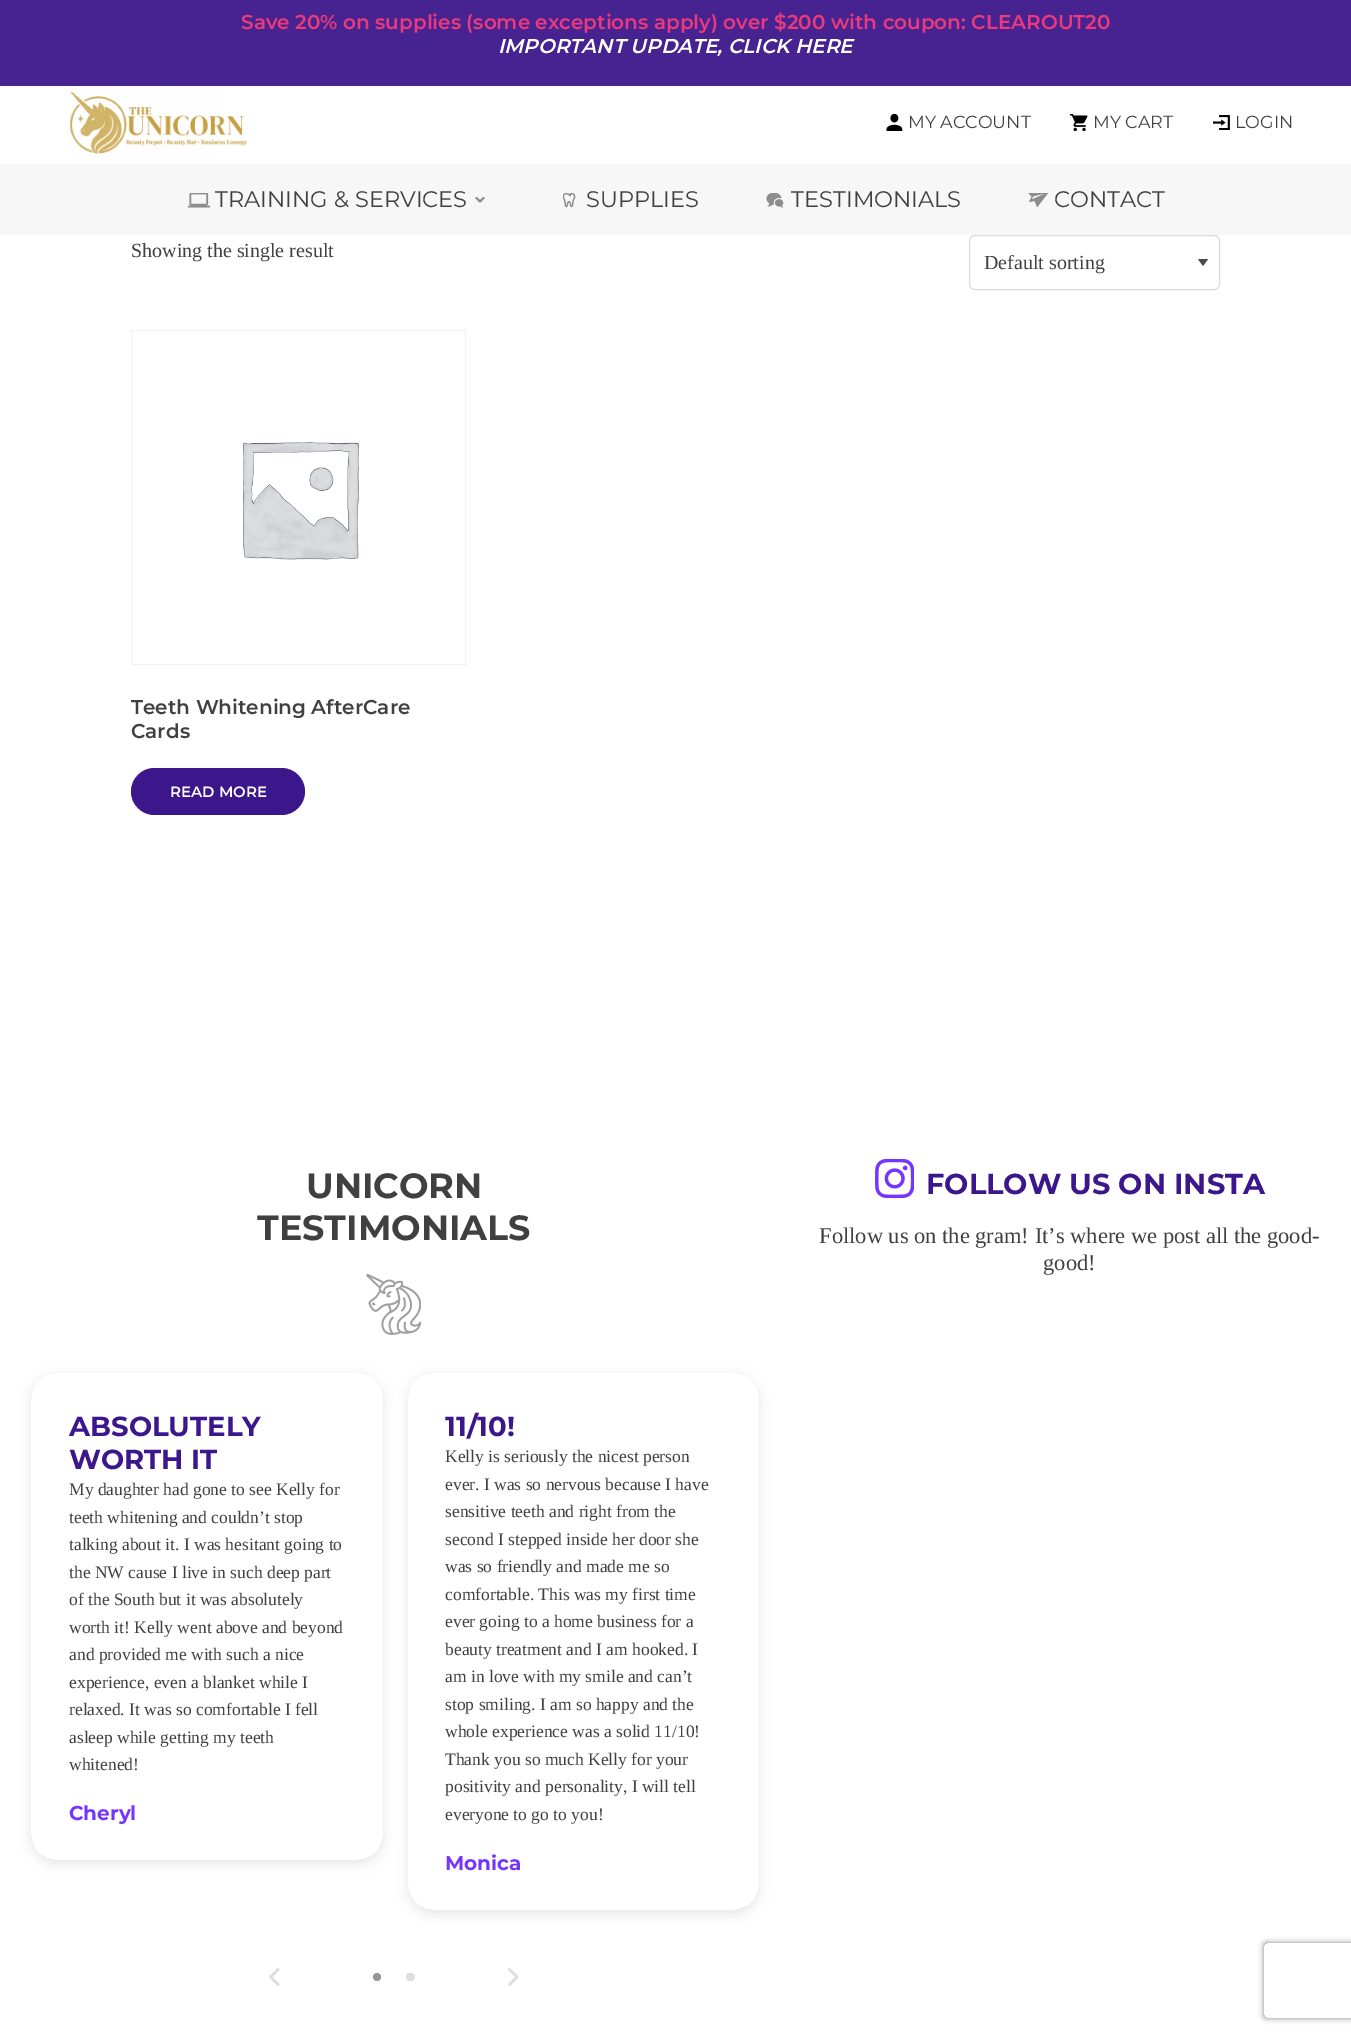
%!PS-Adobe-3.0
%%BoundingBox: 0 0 1351 2035
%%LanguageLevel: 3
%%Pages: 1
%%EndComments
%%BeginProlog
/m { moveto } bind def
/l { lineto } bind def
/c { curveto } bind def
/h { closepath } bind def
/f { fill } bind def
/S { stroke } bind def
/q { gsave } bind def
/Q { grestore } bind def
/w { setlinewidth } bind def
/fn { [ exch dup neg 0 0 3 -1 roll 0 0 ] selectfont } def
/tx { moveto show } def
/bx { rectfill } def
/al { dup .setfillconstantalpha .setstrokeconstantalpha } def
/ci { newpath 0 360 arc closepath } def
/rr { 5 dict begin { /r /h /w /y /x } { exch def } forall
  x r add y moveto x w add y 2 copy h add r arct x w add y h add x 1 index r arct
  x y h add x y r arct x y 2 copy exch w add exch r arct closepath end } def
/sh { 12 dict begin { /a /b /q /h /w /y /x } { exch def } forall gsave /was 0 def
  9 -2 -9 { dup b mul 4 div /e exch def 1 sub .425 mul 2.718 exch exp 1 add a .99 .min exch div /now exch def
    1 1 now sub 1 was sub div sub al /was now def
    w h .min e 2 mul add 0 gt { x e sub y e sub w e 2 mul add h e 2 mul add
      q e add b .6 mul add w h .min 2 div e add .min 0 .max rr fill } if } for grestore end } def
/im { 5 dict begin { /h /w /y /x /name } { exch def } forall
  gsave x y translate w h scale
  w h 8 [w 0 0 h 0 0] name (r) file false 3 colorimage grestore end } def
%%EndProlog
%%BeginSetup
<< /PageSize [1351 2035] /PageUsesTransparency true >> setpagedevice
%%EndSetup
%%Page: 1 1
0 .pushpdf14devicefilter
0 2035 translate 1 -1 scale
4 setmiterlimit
1 setgray
0 0 1351 2035 bx
0.275 0.137 0.569 setrgbcolor
0 0 1351 86 bx
/Montserrat-SemiBold 20 fn
0.925 0.224 0.482 setrgbcolor
(Save 20% on supplies \(some exceptions apply\) over $200 with coupon: CLEAROUT20) 241 29 tx
/Montserrat-SemiBoldItalic 20 fn
1 setgray
(IMPORTANT UPDATE, CLICK HERE) 498 53 tx
(image0.raw) 69 91 179 63 im
(image1.raw) 886 114 17 17 im
/Montserrat-Regular 17.5 fn
0.251 setgray
(MY ACCOUNT) 908 128 tx
(image2.raw) 1070 114 18 17 im
(MY CART) 1093 128 tx
(image3.raw) 1213 115 17 15 im
(LOGIN) 1235 128 tx
0.969 setgray
0 164 1351 71 bx
(image4.raw) 188 193 22 15 im
/Montserrat-Regular 22.5 fn
0.251 setgray
(TRAINING & SERVICES) 215 207 tx
0.553 setgray
2 w
1 setlinecap
1 setlinejoin
476.5 198 m 480 201.5 l 483.5 198 l S
(image5.raw) 563 193 13 15 im
0.251 setgray
(SUPPLIES) 586 207 tx
(image6.raw) 766 193 18 15 im
(TESTIMONIALS) 791 207 tx
(image7.raw) 1028 193 21 15 im
(CONTACT) 1054 207 tx
/LiberationSerif-Regular 20 fn
(Showing the single result) 131 257 tx
0.294 setgray
1198 259 m 1208 259 l 1203 266 l h f
0.847 0.859 0.871 setrgbcolor
1 w
0 setlinecap
0 setlinejoin
969.5 235.5 250 54 5.5 rr S
0.251 setgray
(Default sorting) 984 269 tx
0.949 setgray
131.5 330.5 334 334 rectstroke
(image8.raw) 242 442 117 118 im
/Montserrat-SemiBold 20 fn
0.251 setgray
(Teeth Whitening AfterCare) 131 714 tx
(Cards) 131 738 tx
0.235 0.09 0.545 setrgbcolor
131 768 174 47 23.5 rr f
/Montserrat-SemiBold 15 fn
1 setgray
(READ MORE) 170 797 tx
/Montserrat-Bold 35 fn
0.251 setgray
(UNICORN) 306 1198 tx
(TESTIMONIALS) 257 1240 tx
(image9.raw) 366 1274 55 61 im
q
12 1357 m 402 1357 l 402 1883 l 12 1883 l h 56 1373 m 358 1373 l 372 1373 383 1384 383 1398 c 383 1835 l 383 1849 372 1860 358 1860 c 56 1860 l 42 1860 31 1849 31 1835 c 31 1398 l 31 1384 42 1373 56 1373 c h eoclip newpath
0 setgray
31 1376 352 488 25 6 0.1 sh
Q
/Montserrat-Bold 27.5 fn
0.235 0.09 0.545 setrgbcolor
(ABSOLUTELY) 69 1436 tx
(WORTH IT) 69 1469 tx
/LiberationSerif-Regular 17.5 fn
0.251 setgray
(My daughter had gone to see Kelly for) 69 1495 tx
(teeth whitening and couldn’t stop) 69 1523 tx
(talking about it. I was hesitant going to) 69 1550 tx
(the NW cause I live in such deep part) 69 1578 tx
(of the South but it was absolutely) 69 1605 tx
(worth it! Kelly went above and beyond) 69 1633 tx
(and provided me with such a nice) 69 1660 tx
(experience, even a blanket while I) 69 1688 tx
(relaxed. It was so comfortable I fell) 69 1715 tx
(asleep while getting my teeth) 69 1743 tx
(whitened!) 69 1770 tx
/Montserrat-Bold 20 fn
0.463 0.208 1 setrgbcolor
(Cheryl) 69 1820 tx
q
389 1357 m 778 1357 l 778 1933 l 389 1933 l h 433 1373 m 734 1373 l 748 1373 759 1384 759 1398 c 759 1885 l 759 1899 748 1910 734 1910 c 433 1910 l 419 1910 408 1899 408 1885 c 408 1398 l 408 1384 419 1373 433 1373 c h eoclip newpath
0 setgray
408 1376 351 538 25 6 0.1 sh
Q
/Montserrat-Bold 27.5 fn
0.235 0.09 0.545 setrgbcolor
(11/10!) 445 1436 tx
/LiberationSerif-Regular 17.5 fn
0.251 setgray
(Kelly is seriously the nicest person) 445 1462 tx
(ever. I was so nervous because I have) 445 1490 tx
(sensitive teeth and right from the) 445 1517 tx
(second I stepped inside her door she) 445 1545 tx
(was so friendly and made me so) 445 1572 tx
(comfortable. This was my first time) 445 1600 tx
(ever going to a home business for a) 445 1627 tx
(beauty treatment and I am hooked. I) 445 1655 tx
(am in love with my smile and can’t) 445 1682 tx
(stop smiling. I am so happy and the) 445 1710 tx
(whole experience was a solid 11/10!) 445 1737 tx
(Thank you so much Kelly for your) 445 1765 tx
(positivity and personality, I will tell) 445 1792 tx
(everyone to go to you!) 445 1820 tx
/Montserrat-Bold 20 fn
0.463 0.208 1 setrgbcolor
(Monica) 445 1870 tx
0.871 setgray
2.6 w
1 setlinecap
1 setlinejoin
278 1969.5 m 270.5 1977 l 278 1984.5 l S
0.588 setgray
377 1977 4 ci f
0.871 setgray
406 1973 9 8 4 rr f
q
508 1966 11 23 5.5 rr clip newpath
509.5 1984.5 m 517 1977 l 509.5 1969.5 l S
Q
(image10.raw) 875 1159 39 40 im
/Montserrat-Bold 28.75 fn
0.235 0.09 0.545 setrgbcolor
(FOLLOW US ON INSTA) 926 1194 tx
/LiberationSerif-Regular 22.5 fn
0.251 setgray
(Follow us on the gram! It’s where we post all the good-) 819 1243 tx
(good!) 1043 1270 tx
q
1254 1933 m 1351 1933 l 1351 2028 l 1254 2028 l h 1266.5 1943 m 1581.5 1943 l 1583 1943 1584 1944 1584 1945.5 c 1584 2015.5 l 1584 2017 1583 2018 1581.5 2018 c 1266.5 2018 l 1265 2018 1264 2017 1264 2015.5 c 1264 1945.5 l 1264 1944 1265 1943 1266.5 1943 c h eoclip newpath
0.502 setgray
1264 1943 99 75 2.5 3 1 sh
Q
.poppdf14devicefilter showpage
%%EOF
